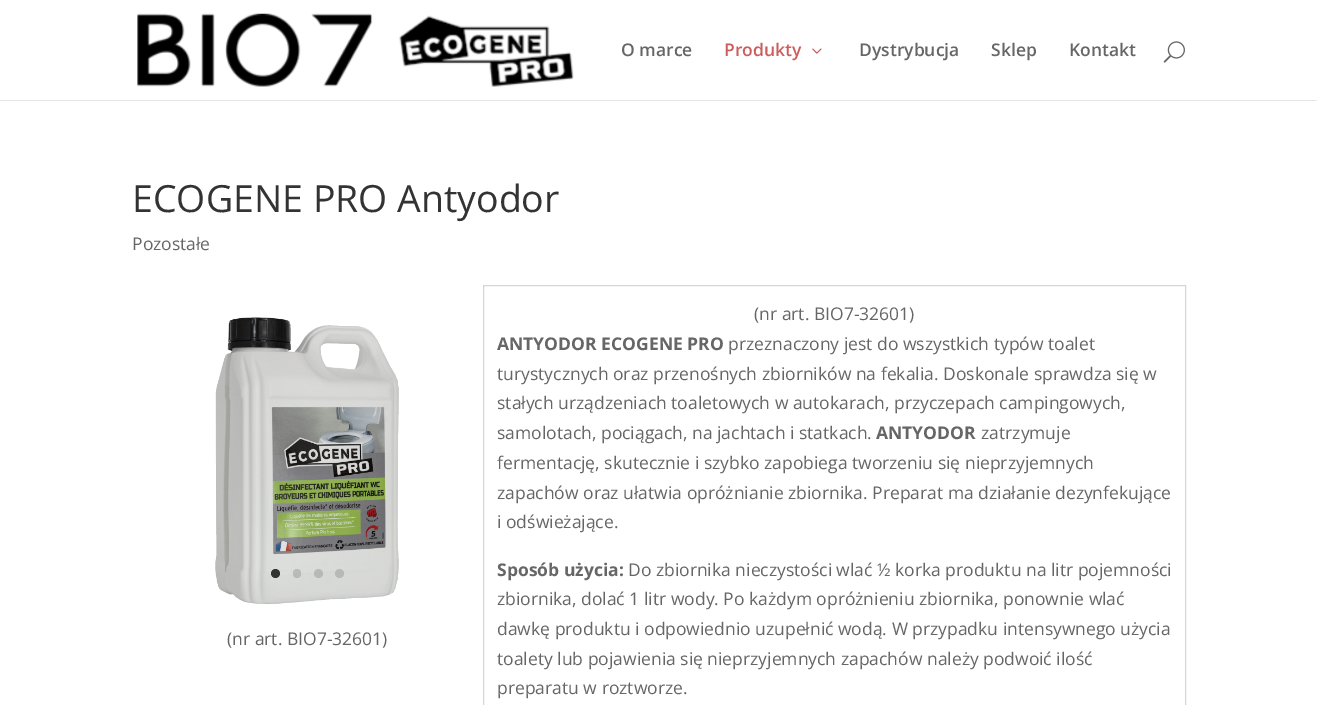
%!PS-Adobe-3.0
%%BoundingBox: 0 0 1317 705
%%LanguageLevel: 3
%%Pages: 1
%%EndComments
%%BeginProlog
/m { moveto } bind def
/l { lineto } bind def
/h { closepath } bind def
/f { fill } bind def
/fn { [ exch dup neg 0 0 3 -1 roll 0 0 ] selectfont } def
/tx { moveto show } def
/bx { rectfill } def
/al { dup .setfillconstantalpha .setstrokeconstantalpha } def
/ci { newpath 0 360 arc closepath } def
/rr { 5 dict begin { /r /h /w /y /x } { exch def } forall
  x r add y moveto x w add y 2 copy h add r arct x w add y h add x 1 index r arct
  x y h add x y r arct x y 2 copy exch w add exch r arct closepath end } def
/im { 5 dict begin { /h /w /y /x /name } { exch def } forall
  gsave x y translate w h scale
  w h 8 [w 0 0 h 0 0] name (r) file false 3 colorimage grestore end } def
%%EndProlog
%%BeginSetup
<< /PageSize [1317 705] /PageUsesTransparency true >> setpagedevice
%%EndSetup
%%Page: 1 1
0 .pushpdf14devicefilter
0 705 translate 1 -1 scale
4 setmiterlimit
1 setgray
0 0 1317 705 bx
0.902 setgray
0 100 m 0 101 l 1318 101 l 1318 1 l 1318 100 l h f
(image0.raw) 137 13 437 74 im
/OpenSans-SemiBold 17.5 fn
0.4 setgray
(O marce) 621 56 tx
0.804 0.361 0.361 setrgbcolor
(Produkty) 724 56 tx
(image1.raw) 812 48 10 6 im
0.4 setgray
(Dystrybucja) 859 56 tx
(Sklep) 991 56 tx
(Kontakt) 1069 56 tx
(image2.raw) 1163 41 22 22 im
/OpenSans-Regular 37.5 fn
0.2 setgray
(ECOGENE PRO Antyodor) 132 212 tx
/OpenSans-Regular 17.5 fn
0.4 setgray
(Pozostałe) 132 250 tx
(image3.raw) 215 317 184 287 im
0.2 setgray
275.5 573.5 4.5 ci f
0.15 al
0 setgray
293 569 8 9 4 rr f
318.5 573.5 4.5 ci f
339.5 573.5 4.5 ci f
1 al
0.4 setgray
(\(nr art. BIO7-32601\)) 227 645 tx
0.839 setgray
483.5 285.5 702 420 rectstroke
0.4 setgray
(\(nr art. BIO7-32601\)) 754 320 tx
/OpenSans-Bold 17.5 fn
(ANTYODOR ECOGENE PRO) 497 350 tx
/OpenSans-Regular 17.5 fn
(przeznaczony jest do wszystkich typów toalet) 728 350 tx
(turystycznych oraz przenośnych zbiorników na fekalia. Doskonale sprawdza się w) 497 380 tx
(stałych urządzeniach toaletowych w autokarach, przyczepach campingowych,) 497 409 tx
(samolotach, pociągach, na jachtach i statkach.) 497 439 tx
/OpenSans-Bold 17.5 fn
(ANTYODOR) 876 439 tx
/OpenSans-Regular 17.5 fn
(zatrzymuje) 981 439 tx
(fermentację, skutecznie i szybko zapobiega tworzeniu się nieprzyjemnych) 497 469 tx
(zapachów oraz ułatwia opróżnianie zbiornika. Preparat ma działanie dezynfekujące) 497 499 tx
(i odświeżające.) 497 528 tx
/OpenSans-Bold 17.5 fn
(Sposób użycia:) 497 576 tx
/OpenSans-Regular 17.5 fn
(Do zbiornika nieczystości wlać ½ korka produktu na litr pojemności) 628 576 tx
(zbiornika, dolać 1 litr wody. Po każdym opróżnieniu zbiornika, ponownie wlać) 497 605 tx
(dawkę produktu i odpowiednio uzupełnić wodą. W przypadku intensywnego użycia) 497 635 tx
(toalety lub pojawienia się nieprzyjemnych zapachów należy podwoić ilość) 497 665 tx
(preparatu w roztworze.) 497 694 tx
.poppdf14devicefilter showpage
%%EOF
